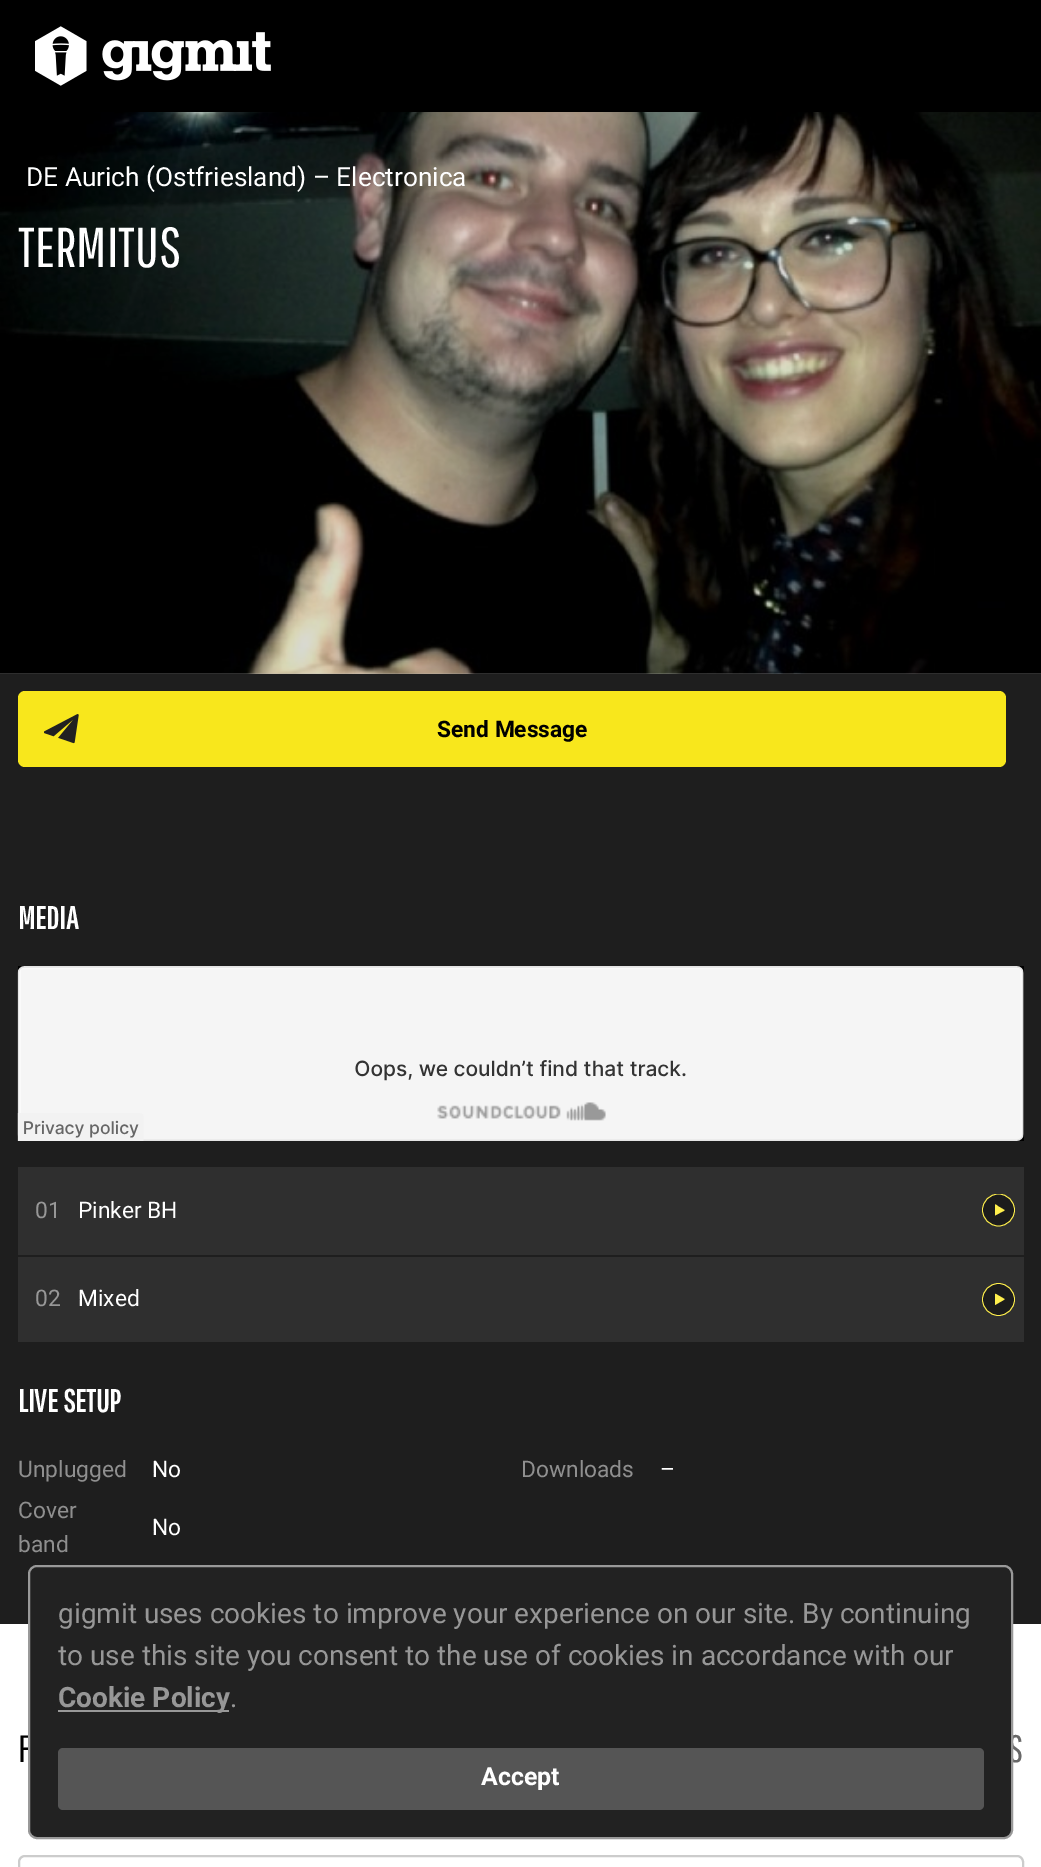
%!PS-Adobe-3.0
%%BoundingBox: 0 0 1041 1867
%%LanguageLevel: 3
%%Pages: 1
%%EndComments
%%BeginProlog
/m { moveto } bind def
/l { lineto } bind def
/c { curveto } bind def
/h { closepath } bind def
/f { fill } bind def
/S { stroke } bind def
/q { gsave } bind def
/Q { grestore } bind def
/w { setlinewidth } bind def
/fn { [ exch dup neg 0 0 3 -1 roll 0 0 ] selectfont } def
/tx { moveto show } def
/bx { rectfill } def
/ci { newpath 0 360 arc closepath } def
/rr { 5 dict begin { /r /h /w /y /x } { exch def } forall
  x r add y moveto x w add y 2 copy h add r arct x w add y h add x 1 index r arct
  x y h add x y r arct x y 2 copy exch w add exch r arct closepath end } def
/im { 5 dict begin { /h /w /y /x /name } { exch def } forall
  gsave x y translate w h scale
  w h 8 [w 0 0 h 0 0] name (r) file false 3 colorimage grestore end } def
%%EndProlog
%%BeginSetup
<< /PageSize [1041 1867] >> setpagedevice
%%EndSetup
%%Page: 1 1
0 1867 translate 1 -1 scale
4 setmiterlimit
1 setgray
0 0 1041 1867 bx
0 setgray
0 0 1041 112 bx
(image0.raw) 35 26 236 60 im
(image1.raw) 0 112 1041 562 im
/Roboto-Regular 26.25 fn
1 setgray
(DE Aurich \(Ostfriesland\) – Electronica) 26 186 tx
/PathwayGothicOne-Regular 56 fn
(TERMITUS) 18 267 tx
0.118 setgray
0 674 1041 950 bx
0.973 0.906 0.11 setrgbcolor
18 691 988 76 7 rr f
(image2.raw) 44 714 35 30 im
/Roboto-Bold 22.75 fn
0 setgray
(Send Message) 437 737 tx
/PathwayGothicOne-Bold 31.5 fn
1 setgray
(MEDIA) 18 929 tx
0 setgray
18 966 1006 175 bx
(image3.raw) 17 966 1007 175 im
0.184 setgray
18 1167 1006 88 bx
/Roboto-Regular 22.75 fn
0.592 setgray
(01) 35 1218 tx
1 setgray
(Pinker BH) 78 1218 tx
0.11 setgray
998.5 1210 16 ci f
q
982 1194 33 33 rectclip
1 0.937 0.302 setrgbcolor
0.8 w
998.5 1210 16 ci S
Q
1 0.937 0.302 setrgbcolor
1004.5 1210 m 1004.5 1210.5 l 995 1215.5 l 995 1206.5 l 995 1203 995.5 1204.5 998.5 1206.5 c h f
0.184 setgray
18 1257 1006 85 bx
0.592 setgray
(02) 35 1306 tx
1 setgray
(Mixed) 78 1306 tx
0.11 setgray
998.5 1299.5 16 ci q f Q
1 0.937 0.302 setrgbcolor
0.8 w
S
1004.5 1299 m 1004.5 1299.5 l 995 1305 l 995 1296 l 995 1292.5 995.5 1294 998.5 1295.5 c h f
/PathwayGothicOne-Bold 31.5 fn
1 setgray
(LIVE SETUP) 18 1412 tx
/Roboto-Regular 22.75 fn
0.561 setgray
(Unplugged) 18 1477 tx
1 setgray
(No) 152 1477 tx
0.561 setgray
(Cover) 18 1518 tx
(band) 18 1552 tx
1 setgray
(No) 152 1535 tx
0.561 setgray
(Downloads) 521 1477 tx
1 setgray
(–) 660 1477 tx
/PathwayGothicOne-Regular 38 fn
0 setgray
(F) 18 1762 tx
0.408 setgray
(S) 1008 1762 tx
0.8 setgray
2 w
19 1856 1004 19 6 rr S
0.133 setgray
29 1566 983 272 8 rr q f Q
0.6 setgray
S
/Roboto-Regular 28 fn
0.592 setgray
(gigmit uses cookies to improve your experience on our site. By continuing) 58 1623 tx
(to use this site you consent to the use of cookies in accordance with our) 58 1665 tx
0.6 setgray
58 1710 171 2 bx
/Roboto-Bold 28 fn
0.592 setgray
(Cookie Policy) 58 1707 tx
/Roboto-Regular 28 fn
(.) 230 1707 tx
0.333 setgray
58 1748 926 62 5 rr f
/Roboto-Bold 25 fn
1 setgray
(Accept) 481 1785 tx
showpage
%%EOF
